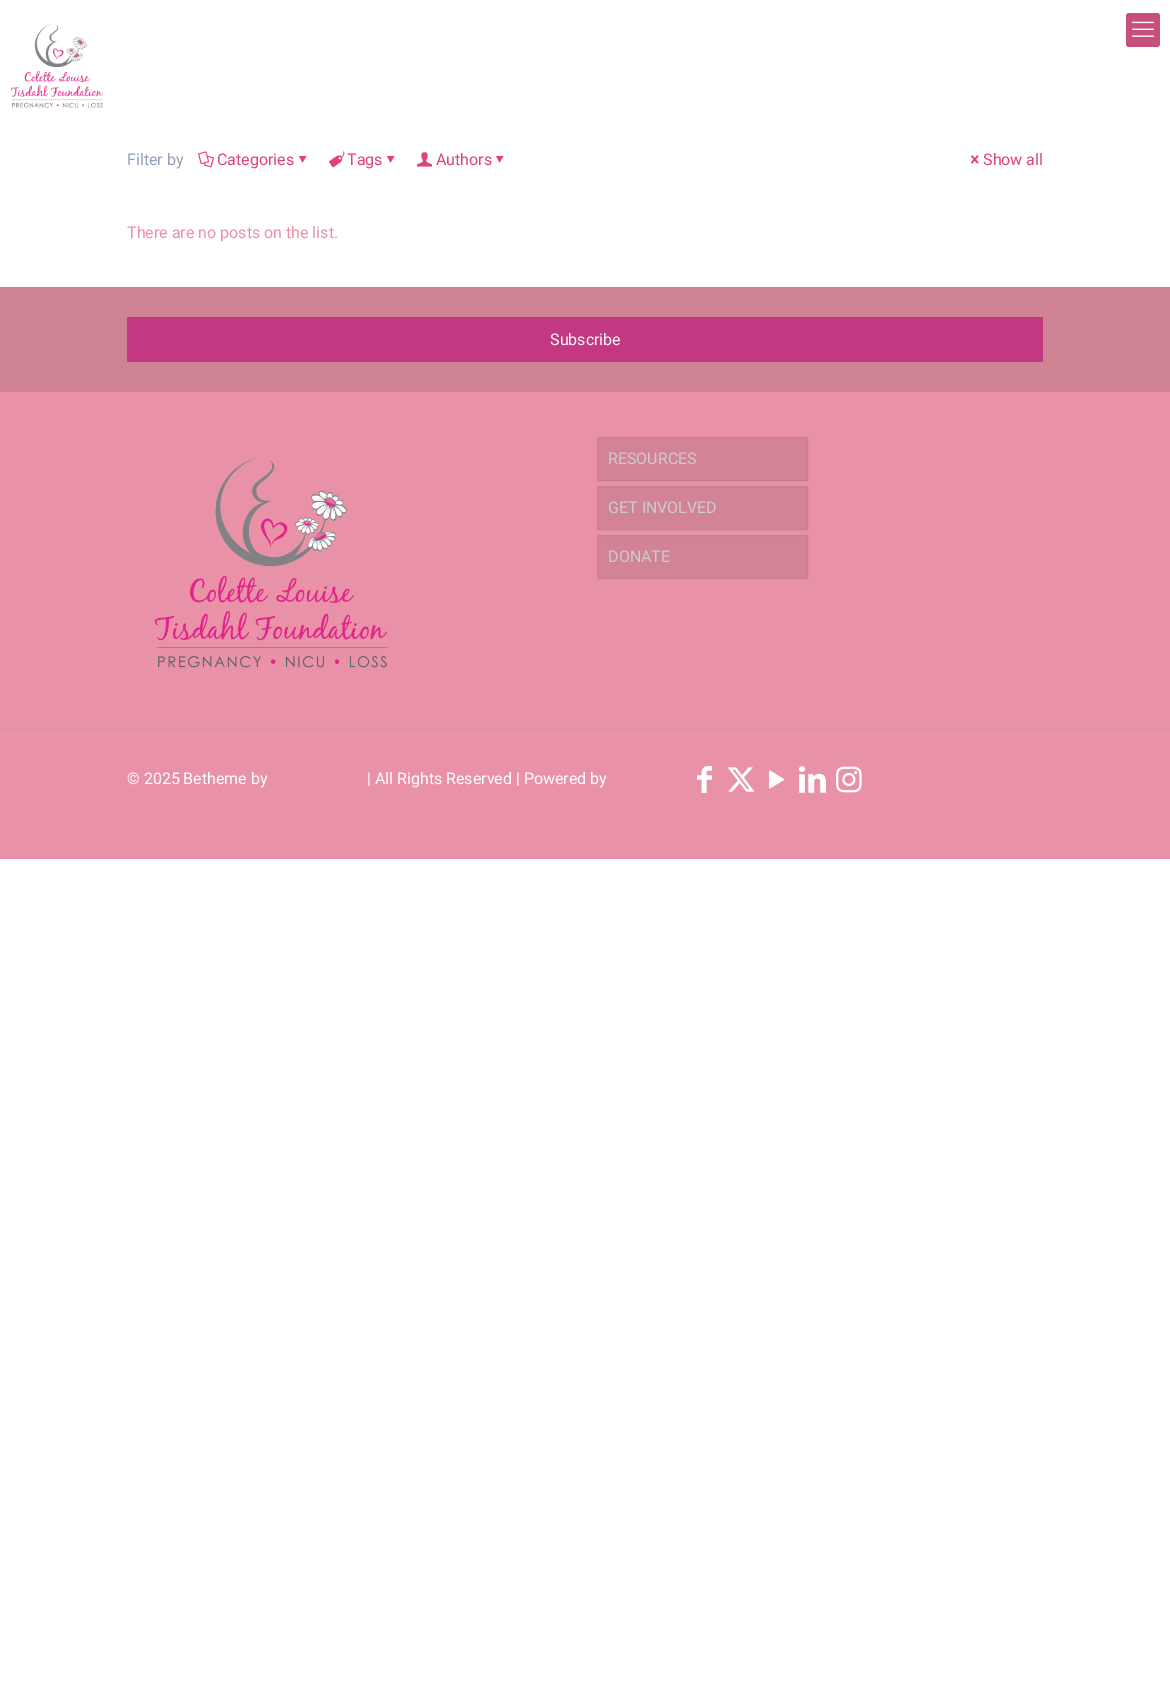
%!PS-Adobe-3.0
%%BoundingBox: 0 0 1170 1684
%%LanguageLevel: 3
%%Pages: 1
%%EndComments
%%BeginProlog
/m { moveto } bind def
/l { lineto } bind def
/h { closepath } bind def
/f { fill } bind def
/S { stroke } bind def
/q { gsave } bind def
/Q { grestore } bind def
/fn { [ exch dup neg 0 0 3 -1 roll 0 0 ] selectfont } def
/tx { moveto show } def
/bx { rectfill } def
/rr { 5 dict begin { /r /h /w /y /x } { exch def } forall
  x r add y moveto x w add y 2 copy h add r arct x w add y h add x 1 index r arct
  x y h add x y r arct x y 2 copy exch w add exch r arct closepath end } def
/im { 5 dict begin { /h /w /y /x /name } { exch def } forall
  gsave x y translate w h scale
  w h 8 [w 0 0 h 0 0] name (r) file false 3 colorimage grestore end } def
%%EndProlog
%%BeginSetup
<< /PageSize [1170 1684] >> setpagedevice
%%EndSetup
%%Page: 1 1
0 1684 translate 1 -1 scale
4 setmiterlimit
1 setgray
0 0 1170 1684 bx
(image0.raw) 10 24 93 84 im
0.78 0.31 0.486 setrgbcolor
1126 13 34 34 3 rr f
(image1.raw) 1132 21 22 16 im
/Roboto-Regular 16 fn
0.588 0.627 0.733 setrgbcolor
(Filter by) 127 165 tx
(image2.raw) 198 151 16 17 im
0.878 0.259 0.502 setrgbcolor
(Categories) 217 165 tx
306.5 156 m 302.5 162.5 l 299 156 l h f
(image3.raw) 329 151 16 17 im
(Tags) 347 165 tx
394.5 156 m 390.5 162.5 l 387 156 l h f
(image4.raw) 417 152 16 15 im
(Authors) 436 165 tx
503.5 156 m 499.5 162.5 l 496 156 l h f
(image5.raw) 971 155 8 9 im
(Show all) 983 165 tx
0.914 0.573 0.655 setrgbcolor
(There are no posts on the list.) 127 238 tx
0 392 1170 467 bx
0.82 0.514 0.588 setrgbcolor
0 287 1170 105 bx
0.761 0.22 0.51 setrgbcolor
127 317 916 45 bx
0.98 0.961 0.961 setrgbcolor
(Subscribe) 550 345 tx
(image6.raw) 154 457 234 211 im
0.824 0.514 0.588 setrgbcolor
597.5 437.5 m 807.5 437.5 l 807.5 480.5 l 597.5 480.5 l h q f Q
0.792 0.494 0.565 setrgbcolor
S
0.8 setgray
(RESOURCES) 608 464 tx
0.824 0.514 0.588 setrgbcolor
597.5 486.5 m 807.5 486.5 l 807.5 529.5 l 597.5 529.5 l h q f Q
0.792 0.494 0.565 setrgbcolor
S
0.8 setgray
(GET INVOLVED) 608 513 tx
0.824 0.514 0.588 setrgbcolor
597.5 535.5 m 807.5 535.5 l 807.5 578.5 l 597.5 578.5 l h q f Q
0.792 0.494 0.565 setrgbcolor
S
0.8 setgray
(DONATE) 608 562 tx
0.922 0.616 0.69 setrgbcolor
0 734 1170 1 bx
1 setgray
(© 2025 Betheme by) 127 784 tx
(| All Rights Reserved | Powered by) 367 784 tx
(image7.raw) 697 766 15 27 im
(image8.raw) 727 767 28 25 im
(image9.raw) 769 770 15 19 im
(image10.raw) 799 766 27 27 im
(image11.raw) 836 766 26 27 im
showpage
%%EOF
